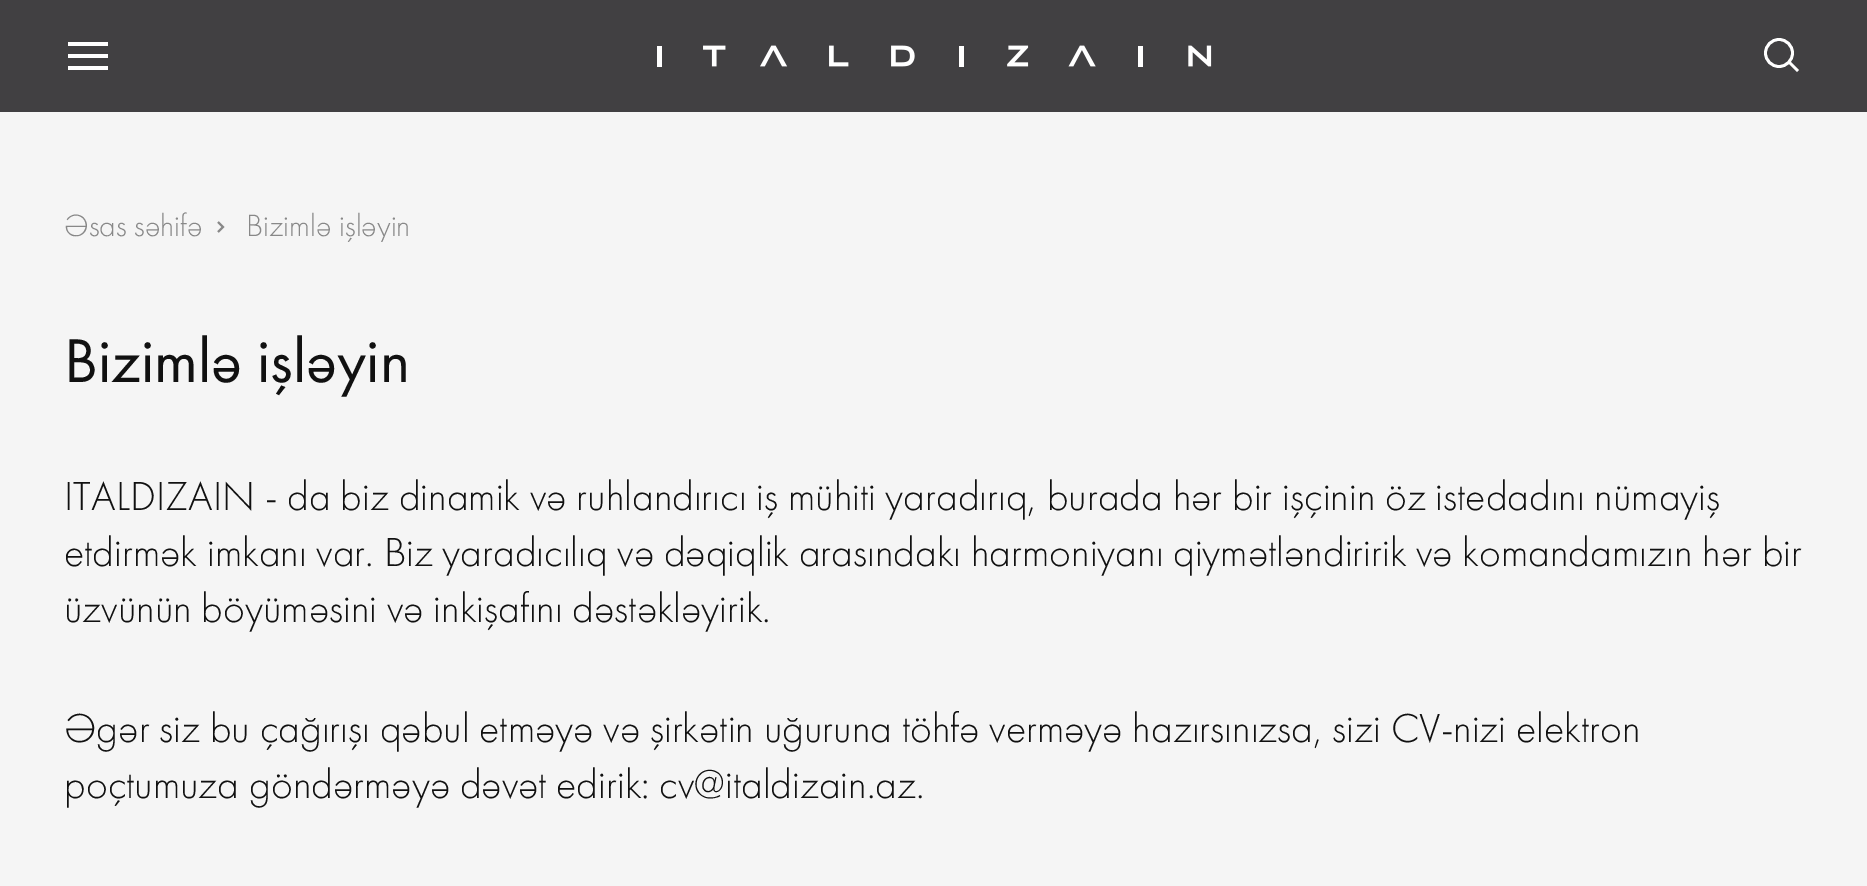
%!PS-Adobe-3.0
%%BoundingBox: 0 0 1867 886
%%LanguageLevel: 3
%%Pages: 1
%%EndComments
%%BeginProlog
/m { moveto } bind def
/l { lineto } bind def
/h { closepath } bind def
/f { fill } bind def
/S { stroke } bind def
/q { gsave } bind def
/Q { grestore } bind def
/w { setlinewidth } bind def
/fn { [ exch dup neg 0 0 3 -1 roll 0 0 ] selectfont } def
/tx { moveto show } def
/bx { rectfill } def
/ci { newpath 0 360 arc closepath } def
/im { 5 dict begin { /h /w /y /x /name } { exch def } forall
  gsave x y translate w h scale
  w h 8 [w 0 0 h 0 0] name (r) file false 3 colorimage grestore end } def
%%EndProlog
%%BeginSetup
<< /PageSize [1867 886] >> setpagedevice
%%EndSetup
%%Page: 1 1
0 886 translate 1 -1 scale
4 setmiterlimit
0.961 setgray
0 0 1867 886 bx
0.255 0.251 0.259 setrgbcolor
0 0 1867 112 bx
1 setgray
68 42 m 108 42 l 108 46 l 68 46 l h 68 54 m 108 54 l 108 58 l 68 58 l h 68 66 m 108 66 l 108 70 l 68 70 l h f
(image0.raw) 657 45 555 22 im
2.8 w
1798 71 m 1789 62 l S
1779 53 13.5 ci S
/FuturaPT-Light 32 fn
0.533 setgray
(Əsas səhifə) 64 236 tx
2 w
218 222 m 223 227 l 218 232 l S
q
32 208 1804 34 rectclip
(Bizimlə işləyin) 246 236 tx
Q
/FuturaPT-Regular 64 fn
0.067 setgray
(Bizimlə işləyin) 64 382 tx
/FuturaPT-Light 42 fn
(ITALDIZAIN - da biz dinamik və ruhlandırıcı iş mühiti yaradırıq, burada hər bir işçinin öz istedadını nümayiş) 64 510 tx
(etdirmək imkanı var. Biz yaradıcılıq və dəqiqlik arasındakı harmoniyanı qiymətləndiririk və komandamızın hər bir) 64 566 tx
(üzvünün böyüməsini və inkişafını dəstəkləyirik.) 64 622 tx
(Əgər siz bu çağırışı qəbul etməyə və şirkətin uğuruna töhfə verməyə hazırsınızsa, sizi CV-nizi elektron) 64 742 tx
(poçtumuza göndərməyə dəvət edirik: cv@italdizain.az.) 64 798 tx
showpage
%%EOF
